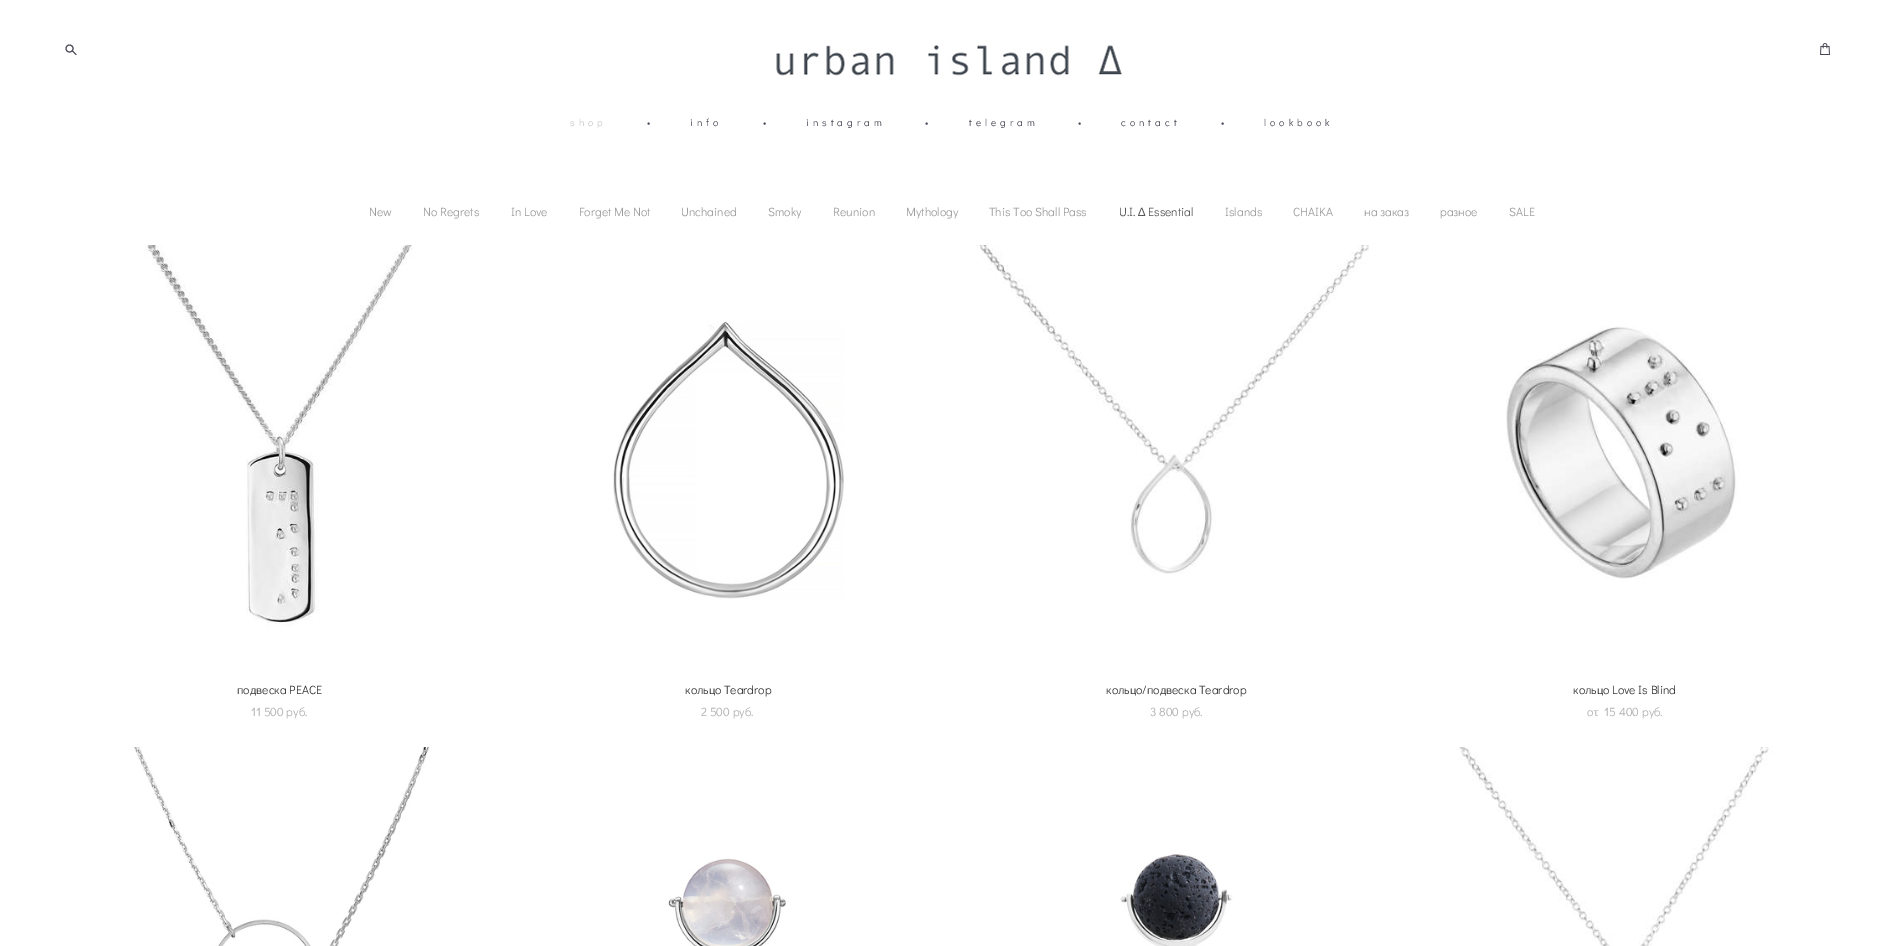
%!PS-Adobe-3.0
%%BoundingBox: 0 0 1904 946
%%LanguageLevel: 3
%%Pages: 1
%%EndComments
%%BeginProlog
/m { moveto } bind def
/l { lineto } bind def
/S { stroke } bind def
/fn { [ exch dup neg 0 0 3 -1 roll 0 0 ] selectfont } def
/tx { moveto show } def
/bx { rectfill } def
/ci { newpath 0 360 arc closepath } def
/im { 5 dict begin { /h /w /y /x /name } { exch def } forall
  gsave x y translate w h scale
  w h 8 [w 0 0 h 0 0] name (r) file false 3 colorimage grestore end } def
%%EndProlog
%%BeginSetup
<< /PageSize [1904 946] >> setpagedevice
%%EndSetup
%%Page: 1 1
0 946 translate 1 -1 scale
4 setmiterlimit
1 setgray
0 0 1904 946 bx
0.275 0.271 0.325 setrgbcolor
69.5 48.5 3.5 ci S
1 setlinecap
1 setlinejoin
72.5 51 m 76 54.5 l S
(image0.raw) 776 45 346 31 im
(image1.raw) 1820 43 10 12 im
/DidactGothic-Regular 10 fn
0.78 setgray
570 126 m 4 0 (shop) ashow
0.275 0.271 0.325 setrgbcolor
(•) 647 126 tx
690 126 m 4 0 (info) ashow
(•) 763 126 tx
806 126 m 4 0 (instagram) ashow
(•) 925 126 tx
969 126 m 4 0 (telegram) ashow
(•) 1078 126 tx
1121 126 m 4 0 (contact) ashow
(•) 1221 126 tx
1264 126 m 4 0 (lookbook) ashow
/DidactGothic-Regular 12 fn
0.62 setgray
(New) 369 216 tx
(No Regrets) 423 216 tx
(In Love) 511 216 tx
(Forget Me Not) 579 216 tx
(Unchained) 681 216 tx
(Smoky) 768 216 tx
(Reunion) 833 216 tx
(Mythology) 906 216 tx
(This Too Shall Pass) 989 216 tx
0.349 0.337 0.337 setrgbcolor
(U.I.) 1119 216 tx
/LiberationSans-Regular 12 fn
(∆) 1138 216 tx
/DidactGothic-Regular 12 fn
(Essential) 1148 216 tx
0.62 setgray
(Islands) 1225 216 tx
(CHAIKA) 1293 216 tx
(на заказ) 1364 216 tx
(разное) 1440 216 tx
(SALE) 1509 216 tx
(image2.raw) 145 245 268 382 im
0.22 setgray
(подвеска PEACE) 237 694 tx
0.69 setgray
(11 500 pуб.) 251 716 tx
(image3.raw) 613 321 231 278 im
0.22 setgray
(кольцо Teardrop) 685 694 tx
0.69 setgray
(2 500 pуб.) 701 716 tx
(image4.raw) 976 245 393 329 im
0.22 setgray
(кольцо/подвеска Teardrop) 1106 694 tx
0.69 setgray
(3 800 pуб.) 1150 716 tx
(image5.raw) 1506 326 233 253 im
0.22 setgray
(кольцо Love Is Blind) 1573 694 tx
0.69 setgray
(от  15 400 pуб.) 1587 716 tx
(image6.raw) 133 747 297 199 im
(image7.raw) 668 858 118 88 im
(image8.raw) 1120 854 113 92 im
(image9.raw) 1459 747 314 199 im
showpage
%%EOF
